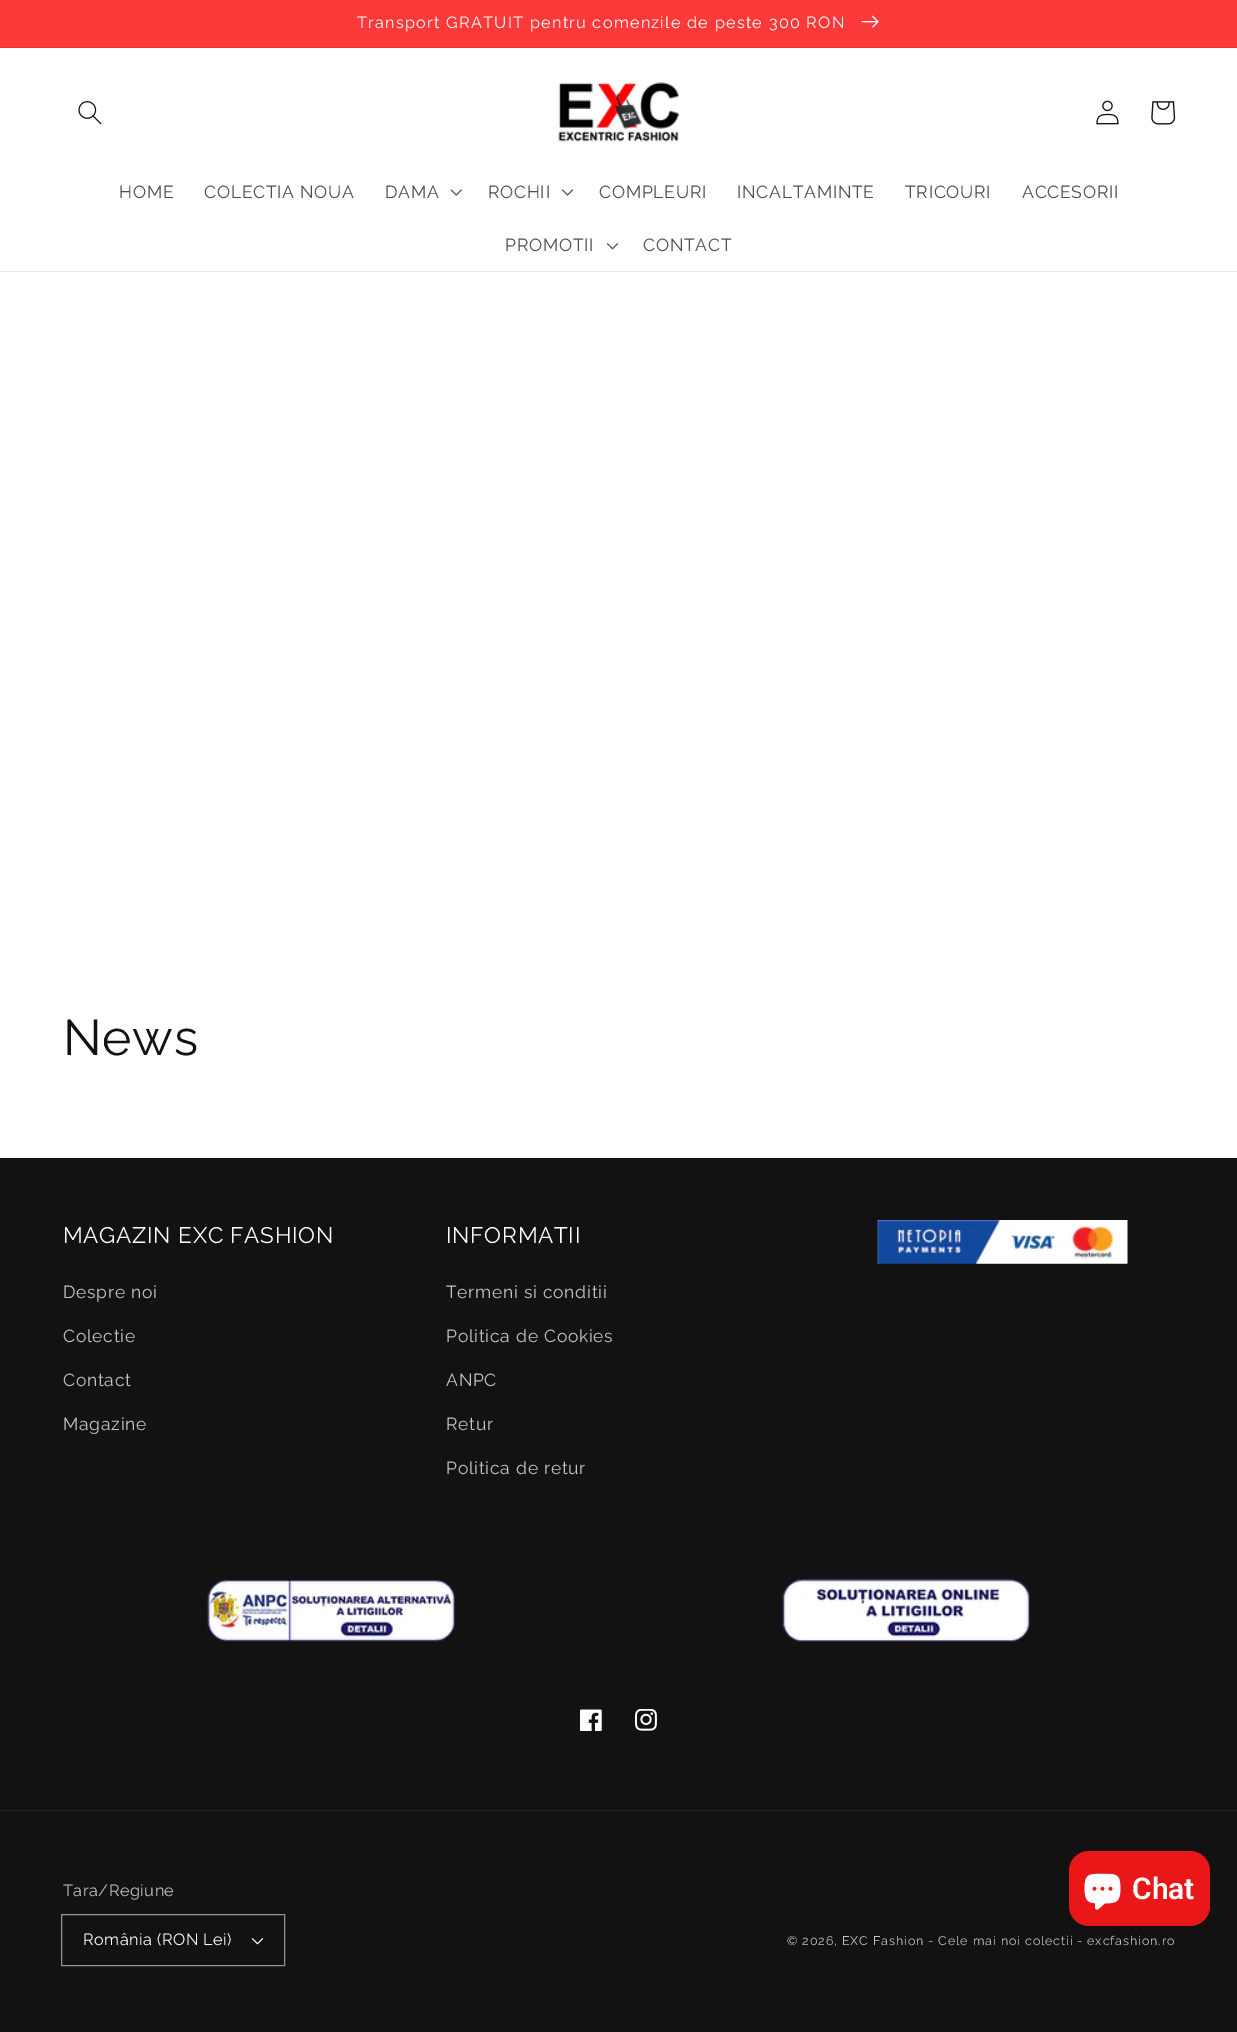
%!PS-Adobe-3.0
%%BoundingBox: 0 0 1237 2032
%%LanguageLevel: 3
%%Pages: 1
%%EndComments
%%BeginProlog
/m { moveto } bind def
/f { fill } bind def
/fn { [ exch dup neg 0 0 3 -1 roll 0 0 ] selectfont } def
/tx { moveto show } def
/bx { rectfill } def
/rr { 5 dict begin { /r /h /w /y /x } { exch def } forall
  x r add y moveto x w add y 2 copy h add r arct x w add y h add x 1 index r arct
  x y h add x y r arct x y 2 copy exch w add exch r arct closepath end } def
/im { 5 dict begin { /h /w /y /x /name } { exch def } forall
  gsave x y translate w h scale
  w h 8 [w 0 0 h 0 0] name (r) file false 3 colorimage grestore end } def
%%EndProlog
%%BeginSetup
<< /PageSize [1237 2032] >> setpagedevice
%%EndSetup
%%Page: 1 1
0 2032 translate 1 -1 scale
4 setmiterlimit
1 setgray
0 0 1237 2032 bx
0.988 0.173 0.173 setrgbcolor
0 47 1237 1 bx
0.988 0.239 0.239 setrgbcolor
0 46 1237 1 bx
0.988 0.224 0.224 setrgbcolor
0 0 1237 46 bx
/Raleway-Regular 16.25 fn
1 setgray
357 28 m 1.25 0 (Transport GRATUIT pentru comenzile de peste 300 RON) ashow
(image0.raw) 861 15 18 13 im
0.925 setgray
0 271 1237 1 bx
(image1.raw) 78 101 24 24 im
(image2.raw) 558 82 121 60 im
(image3.raw) 1096 100 23 25 im
(image4.raw) 1151 101 25 24 im
/Raleway-Regular 17.5 fn
0.302 setgray
119 198 m 0.75 0 (HOME) ashow
204 198 m 0.75 0 (COLECTIA NOUA) ashow
385 198 m 0.75 0 (DAMA) ashow
(image5.raw) 450 189 12 7 im
488 198 m 0.75 0 (ROCHII) ashow
(image6.raw) 562 189 11 7 im
599 198 m 0.75 0 (COMPLEURI) ashow
737 198 m 0.75 0 (INCALTAMINTE) ashow
905 198 m 0.75 0 (TRICOURI) ashow
1022 198 m 0.75 0 (ACCESORII) ashow
505 251 m 0.75 0 (PROMOTII) ashow
(image7.raw) 606 243 13 7 im
643 251 m 0.75 0 (CONTACT) ashow
/Raleway-Regular 50 fn
0.071 setgray
63 1055 m 0.75 0 (News) ashow
0 1158 1237 874 bx
/Raleway-Regular 22.5 fn
1 setgray
63 1243 m 0.75 0 (MAGAZIN EXC FASHION) ashow
/Raleway-Regular 17.5 fn
0.769 setgray
63 1298 m 0.75 0 (Despre noi) ashow
63 1342 m 0.75 0 (Colectie) ashow
63 1386 m 0.75 0 (Contact) ashow
63 1430 m 0.75 0 (Magazine) ashow
/Raleway-Regular 22.5 fn
1 setgray
446 1243 m 0.75 0 (INFORMATII) ashow
/Raleway-Regular 17.5 fn
0.769 setgray
446 1298 m 0.75 0 (Termeni si conditii) ashow
446 1342 m 0.75 0 (Politica de Cookies) ashow
446 1386 m 0.75 0 (ANPC) ashow
446 1430 m 0.75 0 (Retur) ashow
446 1474 m 0.75 0 (Politica de retur) ashow
(image8.raw) 877 1220 251 44 im
(image9.raw) 207 1579 249 63 im
(image10.raw) 781 1578 250 64 im
(image11.raw) 580 1709 22 22 im
(image12.raw) 635 1709 22 22 im
0.145 setgray
0 1810 1237 1 bx
/Raleway-Regular 16.25 fn
0.769 setgray
63 1896 m 0.5 0 (Tara/Regiune) ashow
0.58 setgray
61.5 1914.5 223 51 rectstroke
1 setgray
83 1945 m 0.5 0 (România \(RON Lei\)) ashow
(image13.raw) 251 1938 13 7 im
/Raleway-Regular 12.5 fn
0.769 setgray
787 1945 m 0.9 0 (© 2026, EXC Fashion - Cele mai noi colectii) ashow
1077 1945 m 0.9 0 (- excfashion.ro) ashow
0.914 0.09 0.09 setrgbcolor
1069 1851 141 75 20 rr f
(image14.raw) 1084 1873 37 37 im
/Roboto-SemiBold 30 fn
1 setgray
(Chat) 1132 1899 tx
showpage
%%EOF
